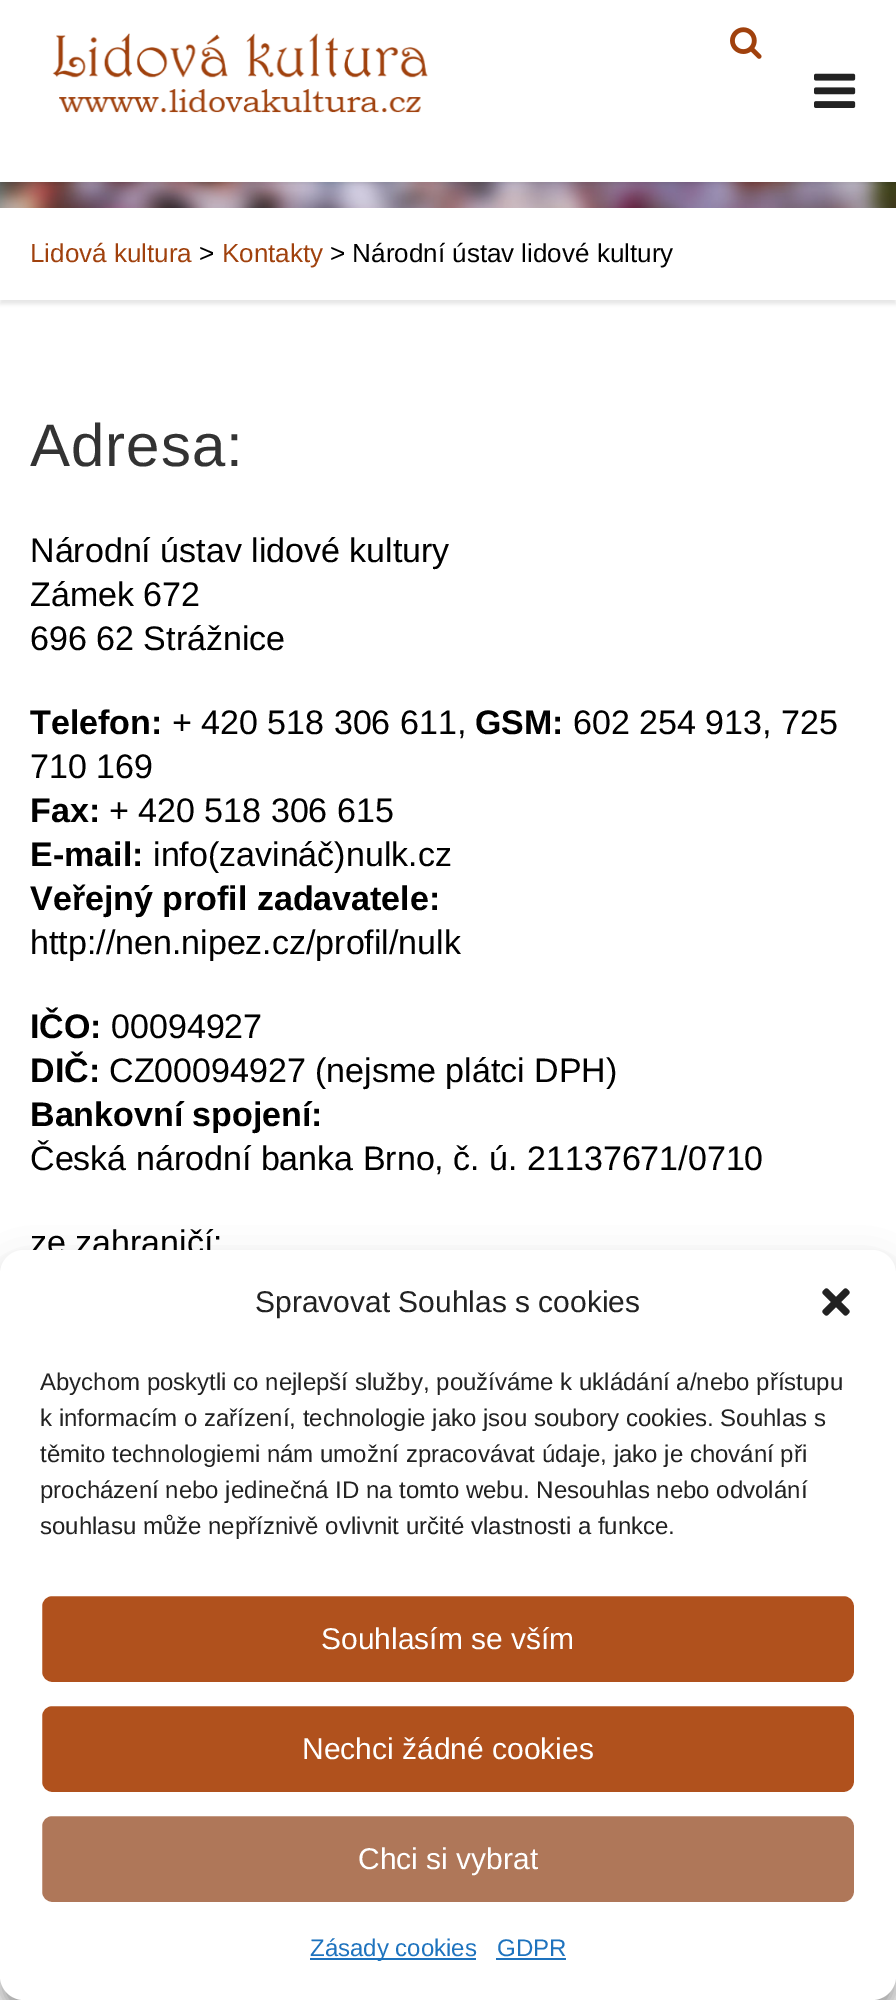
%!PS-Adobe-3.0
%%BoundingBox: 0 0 896 2000
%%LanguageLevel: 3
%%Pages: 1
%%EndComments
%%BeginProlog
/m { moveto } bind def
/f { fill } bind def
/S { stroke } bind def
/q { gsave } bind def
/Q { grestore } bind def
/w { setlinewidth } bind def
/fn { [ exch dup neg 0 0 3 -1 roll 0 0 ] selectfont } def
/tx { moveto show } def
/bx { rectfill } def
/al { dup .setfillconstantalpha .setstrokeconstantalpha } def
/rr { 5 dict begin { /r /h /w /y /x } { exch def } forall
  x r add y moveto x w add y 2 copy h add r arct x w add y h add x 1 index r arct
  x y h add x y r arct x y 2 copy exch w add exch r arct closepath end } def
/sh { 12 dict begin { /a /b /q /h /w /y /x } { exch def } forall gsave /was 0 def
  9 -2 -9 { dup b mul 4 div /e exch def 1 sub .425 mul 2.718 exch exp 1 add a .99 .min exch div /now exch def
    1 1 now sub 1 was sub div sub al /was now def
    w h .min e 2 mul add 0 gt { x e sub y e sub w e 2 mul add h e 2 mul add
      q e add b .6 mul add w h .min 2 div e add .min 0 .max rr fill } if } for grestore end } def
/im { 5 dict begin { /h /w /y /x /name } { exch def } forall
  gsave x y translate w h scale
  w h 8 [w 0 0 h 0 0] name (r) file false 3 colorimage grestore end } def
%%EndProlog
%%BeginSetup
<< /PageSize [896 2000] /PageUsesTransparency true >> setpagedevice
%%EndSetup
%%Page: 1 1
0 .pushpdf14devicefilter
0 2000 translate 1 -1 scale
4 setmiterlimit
1 setgray
0 0 896 2000 bx
q
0 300 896 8 rectclip
0.902 setgray
0 212 896 92 0 2 1 sh
Q
(image3.raw) 0 182 896 26 im
0 setgray
0 2 896 182 0 2 0.1 sh
1 setgray
0 0 896 182 bx
(image0.raw) 52 33 376 80 im
(image1.raw) 730 27 32 32 im
(image2.raw) 814 73 42 35 im
/LiberationSans-Regular 26 fn
0.627 0.255 0.051 setrgbcolor
(Lidová kultura) 30 262 tx
0 setgray
(>) 199 262 tx
0.627 0.255 0.051 setrgbcolor
(Kontakty) 222 262 tx
0 setgray
(> Národní ústav lidové kultury) 330 262 tx
/LiberationSans-Regular 60 fn
0.2 setgray
30 466 m 1 0 (Adresa:) ashow
/LiberationSans-Regular 34 fn
0 setgray
(Národní ústav lidové kultury) 30 562 tx
(Zámek 672) 30 606 tx
(696 62 Strážnice) 30 650 tx
/LiberationSans-Bold 34 fn
(Telefon:) 30 734 tx
/LiberationSans-Regular 34 fn
(+ 420 518 306 611,) 172 734 tx
/LiberationSans-Bold 34 fn
(GSM:) 475 734 tx
/LiberationSans-Regular 34 fn
(602 254 913, 725) 573 734 tx
(710 169) 30 778 tx
/LiberationSans-Bold 34 fn
(Fax:) 30 822 tx
/LiberationSans-Regular 34 fn
(+ 420 518 306 615) 109 822 tx
/LiberationSans-Bold 34 fn
(E-mail:) 30 866 tx
/LiberationSans-Regular 34 fn
(info\(zavináč\)nulk.cz) 153 866 tx
/LiberationSans-Bold 34 fn
(Veřejný profil zadavatele:) 30 910 tx
/LiberationSans-Regular 34 fn
(http://nen.nipez.cz/profil/nulk) 30 954 tx
/LiberationSans-Bold 34 fn
(IČO:) 30 1038 tx
/LiberationSans-Regular 34 fn
(00094927) 111 1038 tx
/LiberationSans-Bold 34 fn
(DIČ:) 30 1082 tx
/LiberationSans-Regular 34 fn
(CZ00094927 \(nejsme plátci DPH\)) 109 1082 tx
/LiberationSans-Bold 34 fn
(Bankovní spojení:) 30 1126 tx
/LiberationSans-Regular 34 fn
(Česká národní banka Brno, č. ú. 21137671/0710) 30 1170 tx
(ze zahraničí:) 30 1254 tx
0 1262 896 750 24 6 0.23 sh
0 1270 896 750 24 20 0.19 sh
1 setgray
0 1250 896 750 24 rr f
/LiberationSans-Regular 30 fn
0.133 setgray
(Spravovat Souhlas s cookies) 255 1312 tx
(image4.raw) 822 1288 28 28 im
/LiberationSans-Regular 24 fn
(Abychom poskytli co nejlepší služby, používáme k ukládání a/nebo přístupu) 40 1390 tx
(k informacím o zařízení, technologie jako jsou soubory cookies. Souhlas s) 40 1426 tx
(těmito technologiemi nám umožní zpracovávat údaje, jako je chování při) 40 1462 tx
(procházení nebo jedinečná ID na tomto webu. Nesouhlas nebo odvolání) 40 1498 tx
(souhlasu může nepříznivě ovlivnit určité vlastnosti a funkce.) 40 1534 tx
0.69 0.318 0.114 setrgbcolor
41 1595 814 88 11 rr q f Q
1 setgray
2 w
S
/LiberationSans-Regular 30 fn
(Souhlasím se vším) 321 1649 tx
0.69 0.318 0.114 setrgbcolor
41 1705 814 88 11 rr q f Q
1 setgray
S
(Nechci žádné cookies) 302 1759 tx
0.686 0.467 0.349 setrgbcolor
41 1815 814 88 11 rr q f Q
1 setgray
S
(Chci si vybrat) 358 1869 tx
0.118 0.451 0.745 setrgbcolor
310 1958 166 2 bx
/LiberationSans-Regular 24 fn
(Zásady cookies) 310 1956 tx
(GDPR) 497 1956 tx
496 1958 70 2 bx
.poppdf14devicefilter showpage
%%EOF
